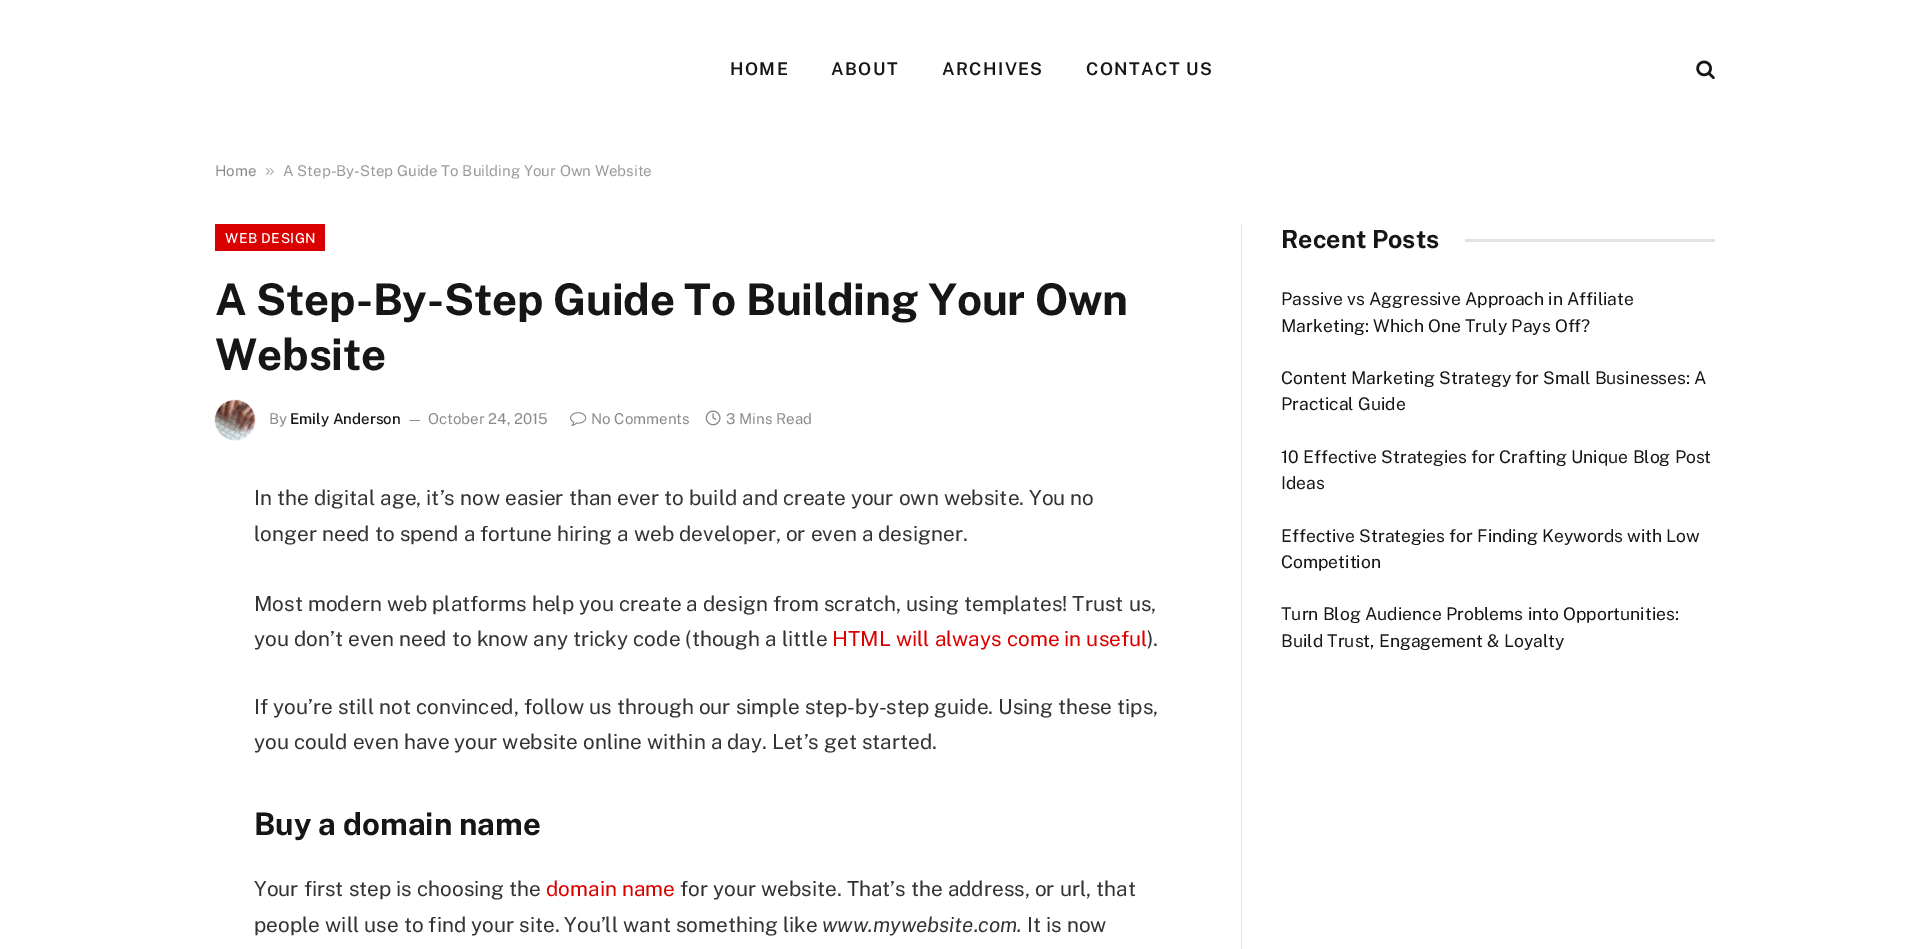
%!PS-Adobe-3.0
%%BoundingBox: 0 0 1929 949
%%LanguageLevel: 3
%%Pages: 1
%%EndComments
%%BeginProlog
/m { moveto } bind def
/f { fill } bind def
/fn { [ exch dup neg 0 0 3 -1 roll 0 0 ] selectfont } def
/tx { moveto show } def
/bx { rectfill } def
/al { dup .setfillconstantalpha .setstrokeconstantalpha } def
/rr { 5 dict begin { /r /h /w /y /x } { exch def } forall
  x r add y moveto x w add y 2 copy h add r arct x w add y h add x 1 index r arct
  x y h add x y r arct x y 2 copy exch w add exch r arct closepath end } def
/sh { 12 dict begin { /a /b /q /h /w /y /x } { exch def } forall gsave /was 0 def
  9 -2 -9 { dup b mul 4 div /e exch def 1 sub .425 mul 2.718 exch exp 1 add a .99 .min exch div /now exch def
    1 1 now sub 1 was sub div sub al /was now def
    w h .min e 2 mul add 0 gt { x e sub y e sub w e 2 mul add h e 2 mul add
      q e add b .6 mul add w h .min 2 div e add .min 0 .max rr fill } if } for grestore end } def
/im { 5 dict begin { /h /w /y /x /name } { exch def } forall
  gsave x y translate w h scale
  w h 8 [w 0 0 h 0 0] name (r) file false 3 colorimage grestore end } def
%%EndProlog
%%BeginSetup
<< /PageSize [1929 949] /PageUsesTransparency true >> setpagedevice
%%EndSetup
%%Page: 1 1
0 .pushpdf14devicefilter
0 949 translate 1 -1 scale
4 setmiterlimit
1 setgray
0 0 1929 949 bx
/PublicSans-SemiBold 17.5 fn
0.086 setgray
730 75 m 1.4 0 (HOME) ashow
831 75 m 1.4 0 (ABOUT) ashow
942 75 m 1.4 0 (ARCHIVES) ashow
1086 75 m 1.4 0 (CONTACT US) ashow
(image0.raw) 1696 60 19 20 im
/PublicSans-Regular 15 fn
0.541 setgray
(Home) 215 176 tx
/LiberationSans-Regular 17 fn
0.678 setgray
(») 265 176 tx
/PublicSans-Regular 15 fn
0.6 setgray
(A Step-By-Step Guide To Building Your Own Website) 283 176 tx
0.855 0 0 setrgbcolor
215 224 110 27 1 rr f
/PublicSans-Medium 13.75 fn
1 setgray
225 243 m 0.5 0 (WEB DESIGN) ashow
/PublicSans-Bold 43.75 fn
0.086 setgray
215 315 m -0.2 0 (A Step-By-Step Guide To Building Your Own) ashow
215 370 m -0.2 0 (Website) ashow
0 setgray
215 400 40 40 20 0.5 0.2 sh
(image1.raw) 215 400 40 40 im
/PublicSans-Regular 15 fn
0.541 setgray
(By) 269 424 tx
/PublicSans-Medium 15 fn
0.086 setgray
(Emily Anderson) 290 424 tx
/PublicSans-Regular 14 fn
0.541 setgray
(—) 407 424 tx
/PublicSans-Regular 15 fn
(October 24, 2015) 428 424 tx
(image2.raw) 570 412 17 14 im
(No Comments) 591 424 tx
(image3.raw) 705 410 16 16 im
(3 Mins Read) 726 424 tx
/PublicSans-Regular 20.75 fn
0.2 setgray
(In the digital age, it’s now easier than ever to build and create your own website. You no) 254 505 tx
(longer need to spend a fortune hiring a web developer, or even a designer.) 254 541 tx
(Most modern web platforms help you create a design from scratch, using templates! Trust us,) 254 611 tx
(you don’t even need to know any tricky code \(though a little) 254 646 tx
0.855 0 0 setrgbcolor
(HTML will always come in useful) 832 646 tx
0.2 setgray
(\).) 1147 646 tx
(If you’re still not convinced, follow us through our simple step-by-step guide. Using these tips,) 254 714 tx
(you could even have your website online within a day. Let’s get started.) 254 749 tx
/PublicSans-Bold 31.1 fn
0.086 setgray
(Buy a domain name) 254 835 tx
/PublicSans-Regular 20.75 fn
0.2 setgray
(Your first step is choosing the) 254 896 tx
0.855 0 0 setrgbcolor
(domain name) 546 896 tx
0.2 setgray
(for your website. That’s the address, or url, that) 680 896 tx
(people will use to find your site. You’ll want something like) 254 932 tx
/PublicSans-ThinItalic 20.75 fn
(www.mywebsite.com.) 822 932 tx
/PublicSans-Regular 20.75 fn
(It is now) 1027 932 tx
0.886 setgray
1241 224 1 725 bx
/PublicSans-Bold 25 fn
0.086 setgray
(Recent Posts) 1281 248 tx
0.886 setgray
1465 239 250 3 bx
/PublicSans-Regular 17.5 fn
0.086 setgray
(Passive vs Aggressive Approach in Affiliate) 1281 305 tx
(Marketing: Which One Truly Pays Off?) 1281 332 tx
(Content Marketing Strategy for Small Businesses: A) 1281 384 tx
(Practical Guide) 1281 410 tx
(10 Effective Strategies for Crafting Unique Blog Post) 1281 463 tx
(Ideas) 1281 489 tx
(Effective Strategies for Finding Keywords with Low) 1281 542 tx
(Competition) 1281 568 tx
(Turn Blog Audience Problems into Opportunities:) 1281 620 tx
(Build Trust, Engagement & Loyalty) 1281 647 tx
.poppdf14devicefilter showpage
%%EOF
